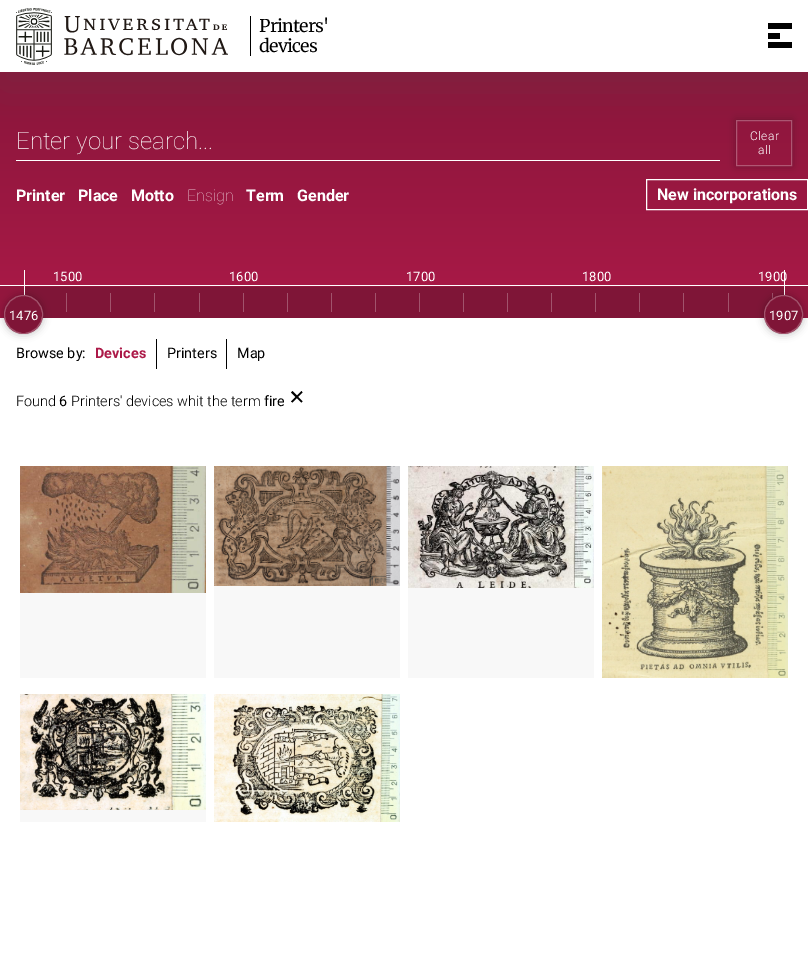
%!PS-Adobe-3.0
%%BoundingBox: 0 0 808 956
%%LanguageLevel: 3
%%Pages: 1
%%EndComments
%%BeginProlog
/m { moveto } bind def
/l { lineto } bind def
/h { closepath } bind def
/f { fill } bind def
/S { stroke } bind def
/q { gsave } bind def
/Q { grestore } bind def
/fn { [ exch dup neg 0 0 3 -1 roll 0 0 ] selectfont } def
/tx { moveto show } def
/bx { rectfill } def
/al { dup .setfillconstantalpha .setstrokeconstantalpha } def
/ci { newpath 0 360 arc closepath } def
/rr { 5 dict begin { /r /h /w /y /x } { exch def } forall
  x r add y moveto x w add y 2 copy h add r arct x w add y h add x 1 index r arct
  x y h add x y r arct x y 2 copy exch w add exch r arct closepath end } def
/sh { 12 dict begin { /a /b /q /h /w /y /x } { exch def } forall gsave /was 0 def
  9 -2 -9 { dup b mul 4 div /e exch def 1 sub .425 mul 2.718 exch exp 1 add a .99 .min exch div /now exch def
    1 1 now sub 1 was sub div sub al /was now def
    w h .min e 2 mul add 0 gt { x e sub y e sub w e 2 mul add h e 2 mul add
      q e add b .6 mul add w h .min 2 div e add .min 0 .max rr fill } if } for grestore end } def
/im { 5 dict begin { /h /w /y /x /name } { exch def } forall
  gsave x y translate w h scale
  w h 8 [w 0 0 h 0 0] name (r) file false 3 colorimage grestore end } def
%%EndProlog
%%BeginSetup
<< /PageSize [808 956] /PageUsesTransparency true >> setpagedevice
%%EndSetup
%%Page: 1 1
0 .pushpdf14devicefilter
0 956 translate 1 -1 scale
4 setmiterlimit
1 setgray
0 0 808 956 bx
q 0 72 m 808 72 l 808 285 l 0 285 l h clip newpath
<< /ShadingType 2 /ColorSpace /DeviceRGB /Coords [404 0 404 318] /Extend [true true] /Function << /FunctionType 2 /Domain [0 1] /C0 [0.498 0.082 0.216] /C1 [0.675 0.098 0.282] /N 1 >> >> shfill Q
16 160 704 1 bx
q
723 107 m 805 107 l 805 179 l 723 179 l h 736 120 m 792 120 l 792 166 l 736 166 l h eoclip newpath
0 setgray
736 120 56 46 0 4 0.27 sh
Q
0.27 al
736.5 120.5 55 45 rectstroke
1 al
0.333 setgray
0 16 808 72 0 24 0.2 sh
1 setgray
0 0 808 72 bx
(image0.raw) 16 8 212 57 im
0 setgray
250 16 1 40 bx
/Merriweather-Regular 17.5 fn
259 32 m -0.75 0 (Printers') ashow
259 52 m -0.75 0 (devices) ashow
768 33 12 6 bx
768 23 24 6 bx
768 42 24 6 bx
q 0 286 m 808 286 l 808 318 l 0 318 l h clip newpath
<< /ShadingType 2 /ColorSpace /DeviceRGB /Coords [404 0 404 318] /Extend [true true] /Function << /FunctionType 2 /Domain [0 1] /C0 [0.431 0.071 0.188] /C1 [0.588 0.086 0.247] /N 1 >> >> shfill Q
/Roboto-Thin 24 fn
1 setgray
(Enter your search...) 16 149 tx
/Roboto-Light 12 fn
750 140 m 0.5 0 (Clear) ashow
758 154 m 0.5 0 (all) ashow
/Roboto-Bold 16 fn
(Printer) 16 201 tx
(Place) 78 201 tx
(Motto) 131 201 tx
/Roboto-Thin 16 fn
0.882 0.725 0.776 setrgbcolor
(Ensign) 187 201 tx
/Roboto-Bold 16 fn
1 setgray
(Term) 246 201 tx
(Gender) 297 201 tx
646.5 179.5 161 30 rectstroke
(New incorporations) 657 200 tx
0.498 0.082 0.216 setrgbcolor
25 287 759 31 bx
0.631 0.325 0.424 setrgbcolor
66 293 1 19 bx
/Roboto-Regular 13 fn
1 setgray
(1500) 53 281 tx
0.631 0.325 0.424 setrgbcolor
243 293 1 19 bx
1 setgray
(1600) 229 281 tx
0.631 0.325 0.424 setrgbcolor
419 293 1 19 bx
1 setgray
(1700) 406 281 tx
0.631 0.325 0.424 setrgbcolor
595 293 1 19 bx
1 setgray
(1800) 582 281 tx
0.631 0.325 0.424 setrgbcolor
772 293 1 6 bx
1 setgray
(1900) 758 281 tx
0.631 0.325 0.424 setrgbcolor
110 293 1 19 bx
154 293 1 19 bx
199 293 1 19 bx
287 293 1 19 bx
331 293 1 19 bx
375 293 1 19 bx
463 293 1 19 bx
507 293 1 19 bx
551 293 1 19 bx
639 293 1 19 bx
683 293 1 19 bx
728 293 1 19 bx
1 setgray
24 270 1 32 0.5 rr f
0 setgray
4 295 39 39 19.5 4 0.27 sh
0.498 0.082 0.216 setrgbcolor
23.5 314.5 19.5 ci f
0.27 al
1 setgray
23.5 314.5 19 ci S
1 al
(1476) 9 320 tx
784 270 1 32 0.5 rr f
0 setgray
764 295 39 39 19.5 4 0.27 sh
0.498 0.082 0.216 setrgbcolor
783.5 314.5 19.5 ci f
0.27 al
1 setgray
783.5 314.5 19 ci S
1 al
(1907) 769 320 tx
/Roboto-Regular 14.4 fn
0 setgray
(Browse by:) 16 358 tx
/Roboto-Bold 14.4 fn
0.675 0.098 0.282 setrgbcolor
(Devices) 95 358 tx
0 setgray
156 339 1 30 bx
/Roboto-Regular 14.4 fn
(Printers) 167 358 tx
226 339 1 30 bx
(Map) 237 358 tx
/Roboto-Light 14.4 fn
(Found) 16 406 tx
/Roboto-Regular 14.4 fn
(6) 59 406 tx
/Roboto-Light 14.4 fn
(Printers' devices whit the term) 71 406 tx
292.5 391 m 302.5 401.5 l 301.5 402.5 l 291 392.5 l h f
/Roboto-Regular 14.4 fn
(fire) 264 406 tx
291 401.5 m 301.5 391 l 302.5 392.5 l 292.5 402.5 l h f
0.973 setgray
20 593 186 85 bx
(image1.raw) 20 466 186 127 im
214 586 186 92 bx
(image2.raw) 214 466 186 120 im
408 588 186 90 bx
(image3.raw) 408 466 186 122 im
(image4.raw) 602 466 186 212 im
20 810 186 12 bx
(image5.raw) 20 694 186 116 im
(image6.raw) 214 694 186 128 im
.poppdf14devicefilter showpage
%%EOF
